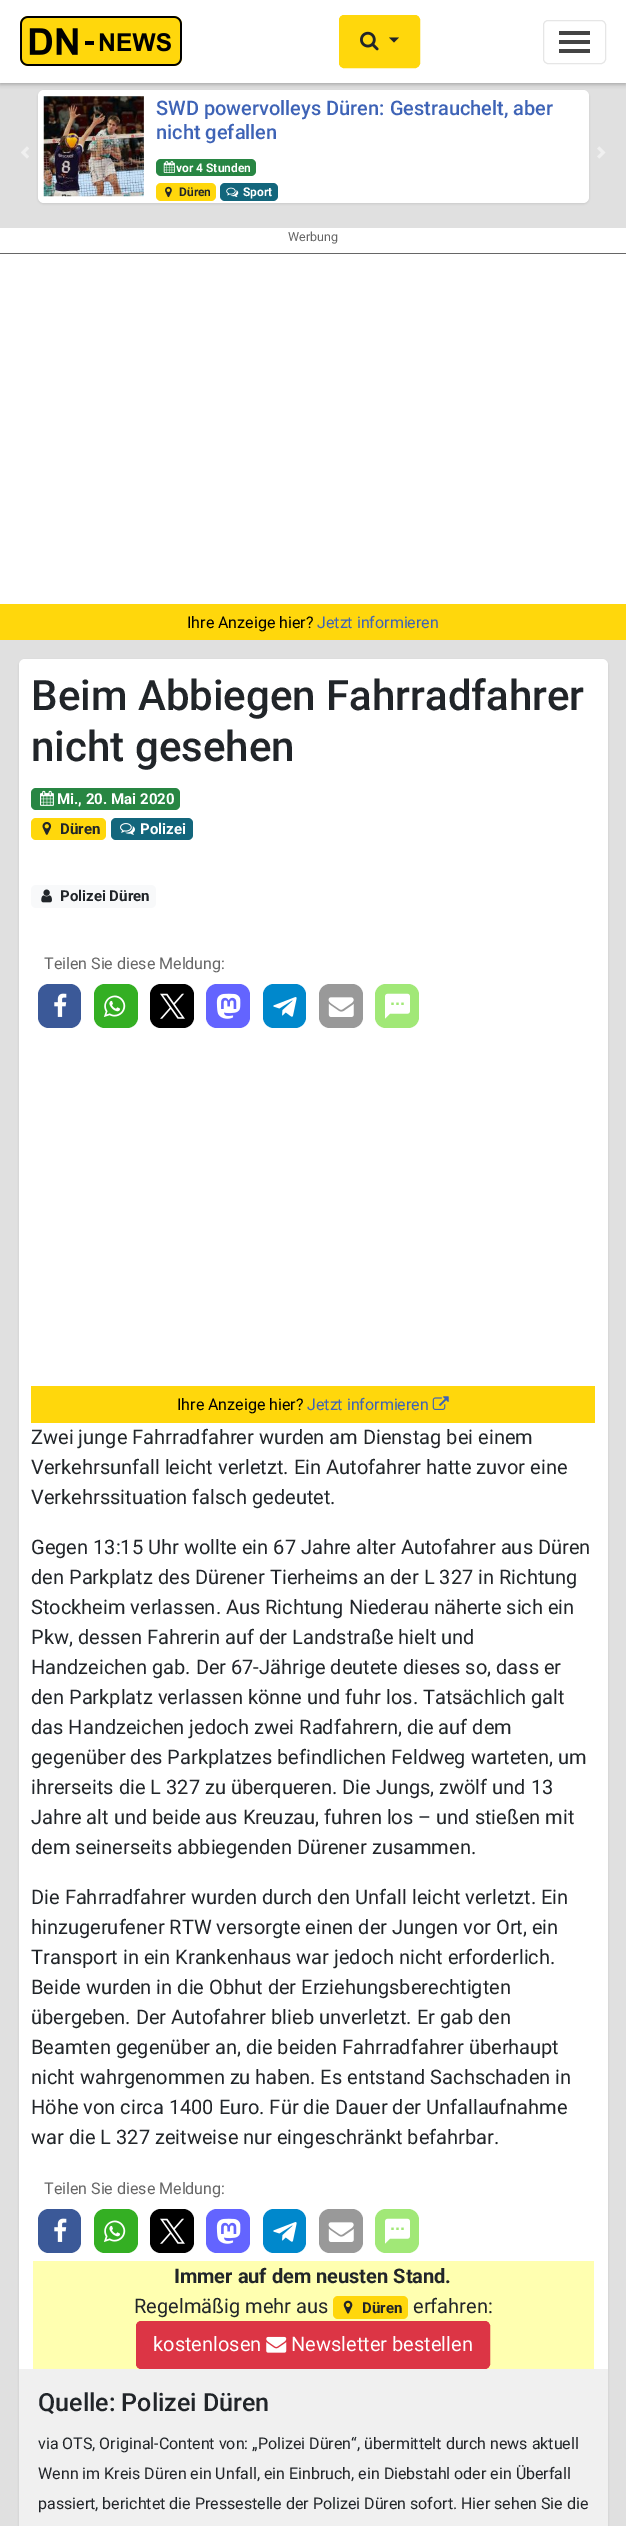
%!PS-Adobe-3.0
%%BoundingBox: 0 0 626 2526
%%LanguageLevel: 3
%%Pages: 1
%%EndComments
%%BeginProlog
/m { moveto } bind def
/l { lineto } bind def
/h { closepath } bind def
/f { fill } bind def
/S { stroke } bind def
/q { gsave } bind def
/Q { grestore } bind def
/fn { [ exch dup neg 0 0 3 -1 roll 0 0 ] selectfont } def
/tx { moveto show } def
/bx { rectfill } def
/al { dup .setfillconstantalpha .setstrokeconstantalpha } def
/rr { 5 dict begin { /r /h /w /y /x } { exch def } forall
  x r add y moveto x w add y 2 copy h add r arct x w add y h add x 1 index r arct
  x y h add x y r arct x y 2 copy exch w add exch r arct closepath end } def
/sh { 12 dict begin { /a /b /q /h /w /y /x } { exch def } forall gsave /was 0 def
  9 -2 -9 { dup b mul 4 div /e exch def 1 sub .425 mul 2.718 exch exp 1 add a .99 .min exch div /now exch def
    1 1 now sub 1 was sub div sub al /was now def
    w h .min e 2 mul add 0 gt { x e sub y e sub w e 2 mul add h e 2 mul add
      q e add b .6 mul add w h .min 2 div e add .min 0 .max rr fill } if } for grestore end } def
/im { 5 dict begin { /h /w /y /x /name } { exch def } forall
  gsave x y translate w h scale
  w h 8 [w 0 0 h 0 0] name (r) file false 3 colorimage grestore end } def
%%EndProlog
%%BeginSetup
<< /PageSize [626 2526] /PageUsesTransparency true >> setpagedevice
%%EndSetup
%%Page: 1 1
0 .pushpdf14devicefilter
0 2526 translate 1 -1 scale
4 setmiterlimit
0.878 setgray
0 0 626 2526 bx
0 setgray
38 91 551 113 6 1 0.1 sh
1 setgray
38 90 551 113 6 rr f
0 setgray
0 1 626 83 0 2.5 0.3 sh
1 setgray
0 0 626 83 bx
(image0.raw) 20 16 162 50 im
1 0.843 0.047 setrgbcolor
339.5 15.5 80 52 4.5 rr q f Q
S
(image1.raw) 360 31 19 20 im
0.129 0.145 0.161 setrgbcolor
389 37.5 m 399 37.5 l 394 42.5 l h f
0.902 setgray
543.5 20.5 62 43 4.5 rr S
0.267 setgray
559 31 31 4 bx
559 40 31 4 bx
559 49 31 4 bx
(image2.raw) 21 146 8 13 im
(image3.raw) 43 96 101 101 im
/Roboto-Medium 20 fn
0.243 0.388 0.714 setrgbcolor
(SWD powervolleys Düren: Gestrauchelt, aber) 156 115 tx
(nicht gefallen) 156 139 tx
0.157 0.525 0.263 setrgbcolor
156 159 100 17 5 rr f
(image4.raw) 163 160 12 13 im
/Roboto-Bold 12 fn
1 setgray
(vor 4 Stunden) 176 172 tx
1 0.843 0.047 setrgbcolor
156 183 60 18 5 rr f
(image5.raw) 165 186 7 12 im
0.129 0.145 0.161 setrgbcolor
(Düren) 179 196 tx
0.075 0.4 0.486 setrgbcolor
220 183 58 18 5 rr f
(image6.raw) 226 187 13 11 im
1 setgray
(Sport) 243 196 tx
(image7.raw) 597 146 9 13 im
0 228 626 376 bx
0.4 setgray
0 253 626 1 bx
/Roboto-Regular 12.5 fn
(Werbung) 288 241 tx
1 0.843 0.047 setrgbcolor
0 604 626 36 bx
/Roboto-Regular 16 fn
0 setgray
(Ihre Anzeige hier?) 187 628 tx
0.243 0.388 0.714 setrgbcolor
(Jetzt informieren) 317 628 tx
0 setgray
19 660 589 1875 6 1 0.1 sh
1 setgray
19 659 589 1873 6 rr f
/Roboto-Medium 42 fn
0.129 0.145 0.161 setrgbcolor
(Beim Abbiegen Fahrradfahrer) 31 710 tx
(nicht gesehen) 31 761 tx
0.157 0.525 0.263 setrgbcolor
31 788 149 22 5 rr f
(image8.raw) 40 790 14 16 im
/Roboto-Bold 15 fn
1 setgray
(Mi., 20. Mai 2020) 57 804 tx
1 0.843 0.047 setrgbcolor
31 818 75 22 5 rr f
(image9.raw) 42 822 10 13 im
0.129 0.145 0.161 setrgbcolor
(Düren) 60 834 tx
0.075 0.4 0.486 setrgbcolor
111 818 82 22 5 rr f
(image10.raw) 120 823 15 12 im
1 setgray
(Polizei) 140 834 tx
0.973 0.976 0.98 setrgbcolor
31 885 125 23 5 rr f
(image11.raw) 41 889 11 14 im
0.129 0.145 0.161 setrgbcolor
(Polizei Düren) 60 901 tx
/Roboto-Regular 16 fn
0.4 setgray
(Teilen Sie diese Meldung:) 44 969 tx
0.231 0.349 0.596 setrgbcolor
38 984 43 44 11 rr f
(image12.raw) 54 993 13 24 im
0.204 0.686 0.137 setrgbcolor
94 984 44 44 11 rr f
(image13.raw) 103 995 23 22 im
0 setgray
150 984 44 44 11 rr f
(image14.raw) 160 993 25 26 im
0.388 0.392 1 setrgbcolor
206 984 44 44 11 rr f
(image15.raw) 216 993 25 26 im
0 0.533 0.8 setrgbcolor
263 984 43 44 11 rr f
(image16.raw) 273 997 24 20 im
0.6 setgray
319 984 44 44 11 rr f
(image17.raw) 328 997 26 20 im
0.631 0.91 0.467 setrgbcolor
375 984 44 44 11 rr f
(image18.raw) 385 993 25 26 im
1 0.843 0.047 setrgbcolor
31 1386 564 37 bx
0 setgray
(Ihre Anzeige hier?) 177 1410 tx
0.243 0.388 0.714 setrgbcolor
(Jetzt informieren) 307 1410 tx
(image19.raw) 432 1396 17 14 im
/Roboto-Regular 20 fn
0.129 0.145 0.161 setrgbcolor
(Zwei junge Fahrradfahrer wurden am Dienstag bei einem) 31 1444 tx
(Verkehrsunfall leicht verletzt. Ein Autofahrer hatte zuvor eine) 31 1474 tx
(Verkehrssituation falsch gedeutet.) 31 1504 tx
(Gegen 13:15 Uhr wollte ein 67 Jahre alter Autofahrer aus Düren) 31 1554 tx
(den Parkplatz des Dürener Tierheims an der L 327 in Richtung) 31 1584 tx
(Stockheim verlassen. Aus Richtung Niederau näherte sich ein) 31 1614 tx
(Pkw, dessen Fahrerin auf der Landstraße hielt und) 31 1644 tx
(Handzeichen gab. Der 67-Jährige deutete dieses so, dass er) 31 1674 tx
(den Parkplatz verlassen könne und fuhr los. Tatsächlich galt) 31 1704 tx
(das Handzeichen jedoch zwei Radfahrern, die auf dem) 31 1734 tx
(gegenüber des Parkplatzes befindlichen Feldweg warteten, um) 31 1764 tx
(ihrerseits die L 327 zu überqueren. Die Jungs, zwölf und 13) 31 1794 tx
(Jahre alt und beide aus Kreuzau, fuhren los – und stießen mit) 31 1824 tx
(dem seinerseits abbiegenden Dürener zusammen.) 31 1854 tx
(Die Fahrradfahrer wurden durch den Unfall leicht verletzt. Ein) 31 1904 tx
(hinzugerufener RTW versorgte einen der Jungen vor Ort, ein) 31 1934 tx
(Transport in ein Krankenhaus war jedoch nicht erforderlich.) 31 1964 tx
(Beide wurden in die Obhut der Erziehungsberechtigten) 31 1994 tx
(übergeben. Der Autofahrer blieb unverletzt. Er gab den) 31 2024 tx
(Beamten gegenüber an, die beiden Fahrradfahrer überhaupt) 31 2054 tx
(nicht wahrgenommen zu haben. Es entstand Sachschaden in) 31 2084 tx
(Höhe von circa 1400 Euro. Für die Dauer der Unfallaufnahme) 31 2114 tx
(war die L 327 zeitweise nur eingeschränkt befahrbar.) 31 2144 tx
/Roboto-Regular 16 fn
0.4 setgray
(Teilen Sie diese Meldung:) 44 2194 tx
0.231 0.349 0.596 setrgbcolor
38 2209 43 44 11 rr f
(image12.raw) 54 2218 13 24 im
0.204 0.686 0.137 setrgbcolor
94 2209 44 44 11 rr f
(image13.raw) 103 2220 23 22 im
0 setgray
150 2209 44 44 11 rr f
(image14.raw) 160 2218 25 26 im
0.388 0.392 1 setrgbcolor
206 2209 44 44 11 rr f
(image15.raw) 216 2218 25 26 im
0 0.533 0.8 setrgbcolor
263 2209 43 44 11 rr f
(image16.raw) 273 2222 24 20 im
0.6 setgray
319 2209 44 44 11 rr f
(image17.raw) 328 2222 26 20 im
0.631 0.91 0.467 setrgbcolor
375 2209 44 44 11 rr f
(image18.raw) 385 2218 25 26 im
1 1 0.69 setrgbcolor
33 2261 561 108 bx
/Roboto-Bold 20 fn
0.129 0.145 0.161 setrgbcolor
(Immer auf dem neusten Stand.) 174 2283 tx
/Roboto-Regular 20 fn
(Regelmäßig mehr aus) 134 2313 tx
1 0.843 0.047 setrgbcolor
333 2296 75 23 5 rr f
(image20.raw) 343 2300 10 14 im
/Roboto-Bold 15 fn
0.129 0.145 0.161 setrgbcolor
(Düren) 362 2313 tx
/Roboto-Regular 20 fn
(erfahren:) 413 2313 tx
0.863 0.208 0.271 setrgbcolor
136.5 2321.5 353 47 4.5 rr q f Q
S
1 setgray
(kostenlosen) 153 2351 tx
(image21.raw) 266 2336 21 17 im
(Newsletter bestellen) 291 2351 tx
0.941 setgray
19 2369 589 157 bx
/Roboto-Medium 25 fn
0.129 0.145 0.161 setrgbcolor
(Quelle: Polizei Düren) 38 2411 tx
/Roboto-Regular 16 fn
(via OTS, Original-Content von: „Polizei Düren“, übermittelt durch news aktuell) 38 2449 tx
(Wenn im Kreis Düren ein Unfall, ein Einbruch, ein Diebstahl oder ein Überfall) 38 2479 tx
(passiert, berichtet die Pressestelle der Polizei Düren sofort. Hier sehen Sie die) 38 2509 tx
.poppdf14devicefilter showpage
%%EOF
